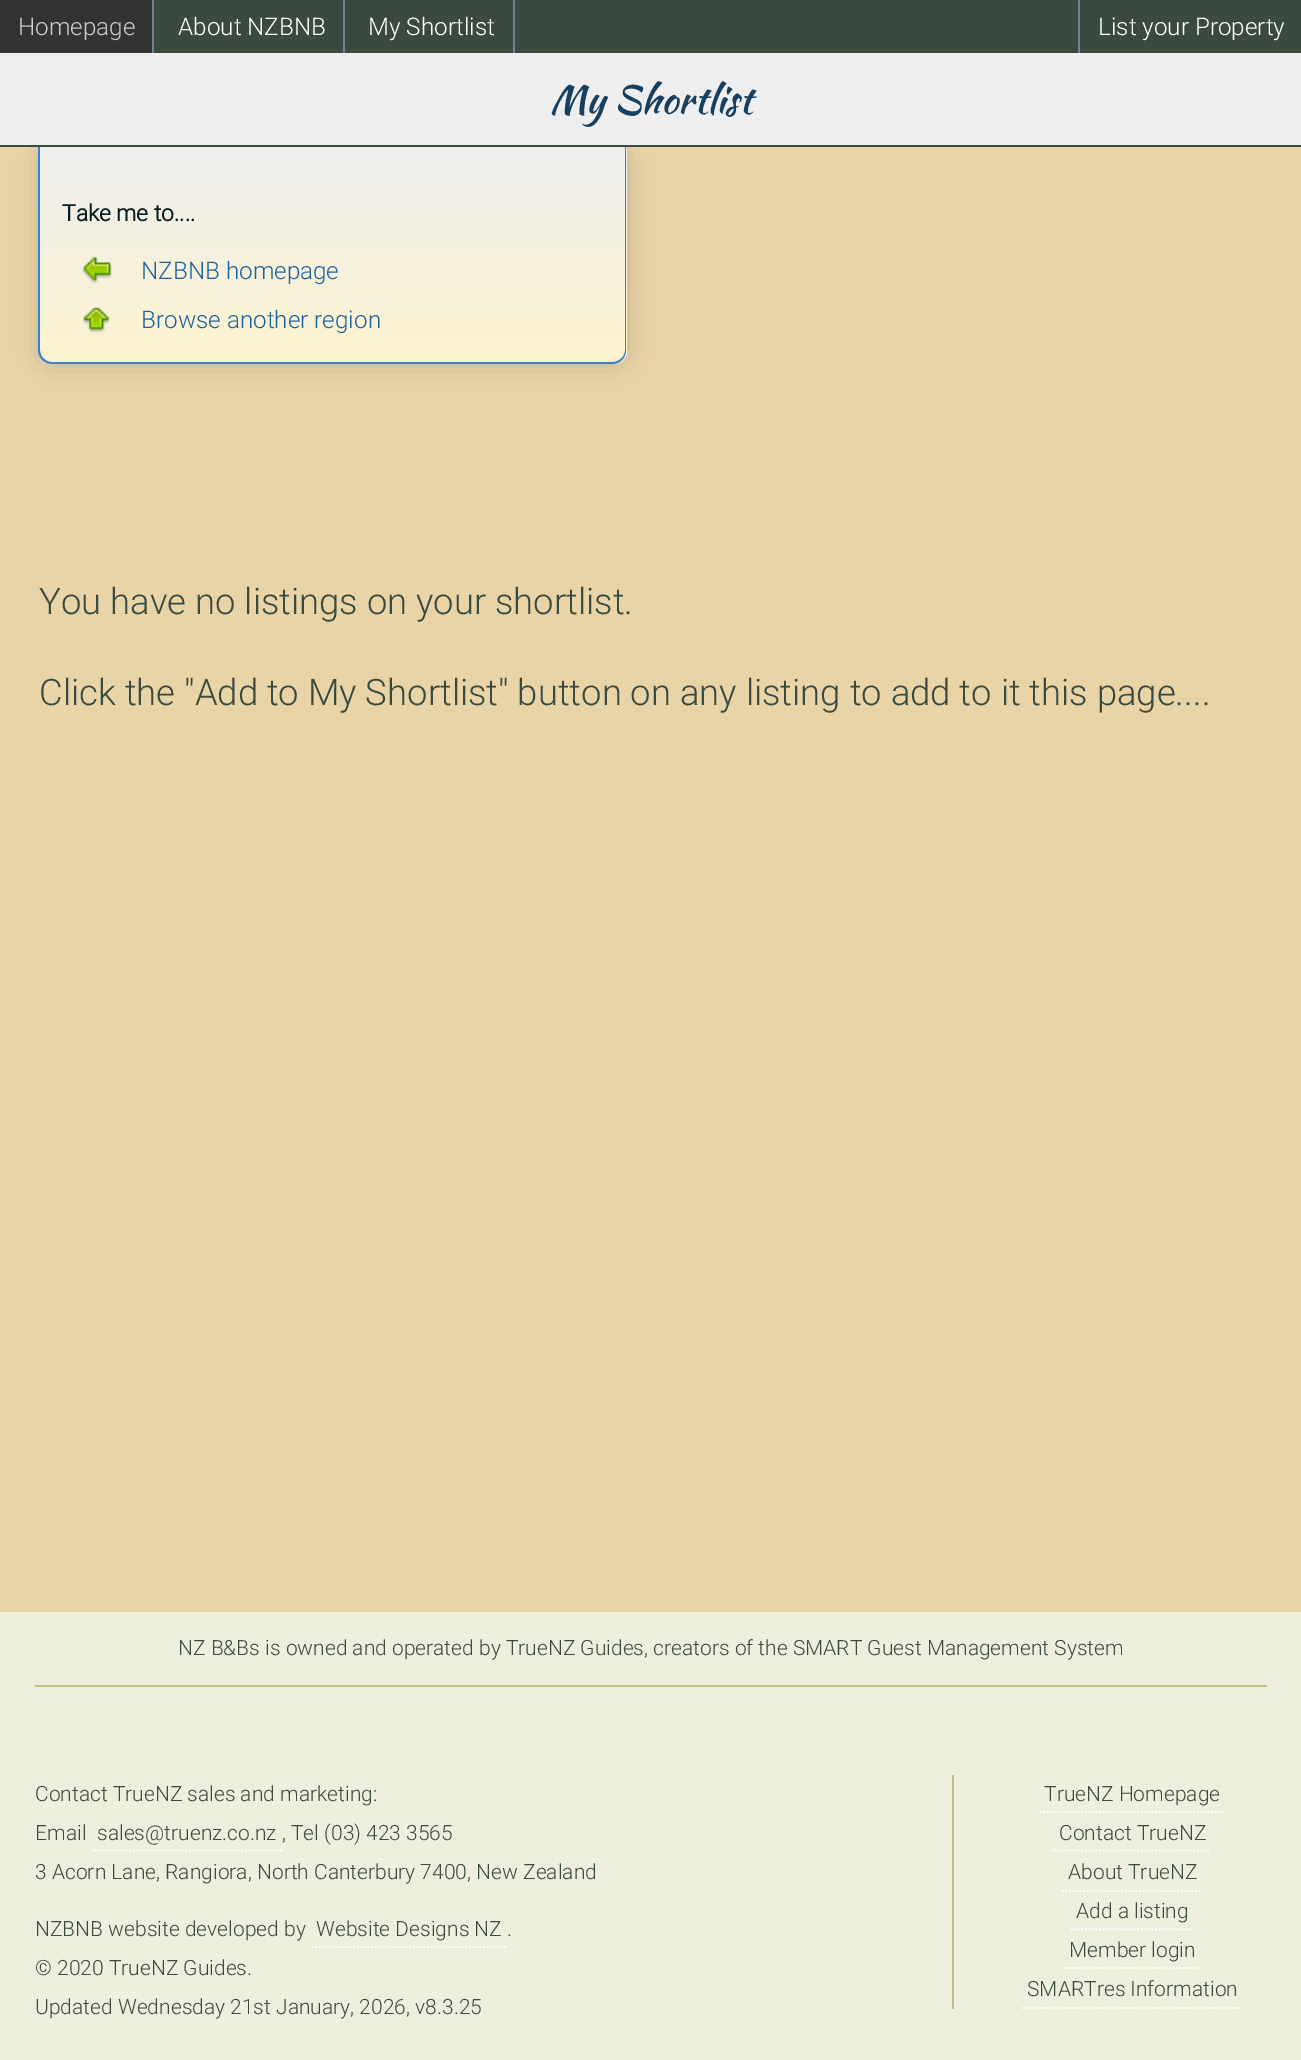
%!PS-Adobe-3.0
%%BoundingBox: 0 0 1301 2060
%%LanguageLevel: 3
%%Pages: 1
%%EndComments
%%BeginProlog
/m { moveto } bind def
/l { lineto } bind def
/c { curveto } bind def
/h { closepath } bind def
/S { stroke } bind def
/q { gsave } bind def
/Q { grestore } bind def
/w { setlinewidth } bind def
/fn { [ exch dup neg 0 0 3 -1 roll 0 0 ] selectfont } def
/tx { moveto show } def
/bx { rectfill } def
/al { dup .setfillconstantalpha .setstrokeconstantalpha } def
/rr { 5 dict begin { /r /h /w /y /x } { exch def } forall
  x r add y moveto x w add y 2 copy h add r arct x w add y h add x 1 index r arct
  x y h add x y r arct x y 2 copy exch w add exch r arct closepath end } def
/sh { 12 dict begin { /a /b /q /h /w /y /x } { exch def } forall gsave /was 0 def
  9 -2 -9 { dup b mul 4 div /e exch def 1 sub .425 mul 2.718 exch exp 1 add a .99 .min exch div /now exch def
    1 1 now sub 1 was sub div sub al /was now def
    w h .min e 2 mul add 0 gt { x e sub y e sub w e 2 mul add h e 2 mul add
      q e add b .6 mul add w h .min 2 div e add .min 0 .max rr fill } if } for grestore end } def
/im { 5 dict begin { /h /w /y /x /name } { exch def } forall
  gsave x y translate w h scale
  w h 8 [w 0 0 h 0 0] name (r) file false 3 colorimage grestore end } def
%%EndProlog
%%BeginSetup
<< /PageSize [1301 2060] /PageUsesTransparency true >> setpagedevice
%%EndSetup
%%Page: 1 1
0 .pushpdf14devicefilter
0 2060 translate 1 -1 scale
4 setmiterlimit
0.91 0.831 0.655 setrgbcolor
0 0 1301 2060 bx
0.196 setgray
39 147 588 217 14 13 0.2 sh
0.933 setgray
0 53 1301 92 bx
0.231 0.29 0.247 setrgbcolor
0 145 1301 2 bx
154 0 1147 53 bx
0.408 0.514 0.596 setrgbcolor
152 0 2 53 bx
0.2 setgray
0 0 152 53 bx
/Roboto-Light 24.25 fn
0.8 setgray
(Homepage) 18 35 tx
0.408 0.514 0.596 setrgbcolor
343 0 2 53 bx
1 setgray
(About NZBNB) 178 35 tx
0.408 0.514 0.596 setrgbcolor
513 0 2 53 bx
1 setgray
(My Shortlist) 368 35 tx
0.408 0.514 0.596 setrgbcolor
1078 0 2 53 bx
1 setgray
(List your Property) 1098 35 tx
/KaushanScript-Regular 38.5 fn
0.09 0.247 0.373 setrgbcolor
(My Shortlist) 550 113 tx
q
39 147 m 627 147 l 627 350 l 627 357.5 620.5 364 613 364 c 53 364 l 45.5 364 39 357.5 39 350 c h clip newpath
q 40 147 m 627 147 l 627 362 l 40 362 l h clip newpath
<< /ShadingType 2 /ColorSpace /DeviceRGB /Coords [333 147 333 362] /Extend [true true] /Function << /FunctionType 2 /Domain [0 1] /C0 [0.933 0.933 0.933] /C1 [0.992 0.957 0.812] /N 1 >> >> shfill Q
q 39 362 m 627 362 l 627 364 l 39 364 l h clip newpath
<< /ShadingType 2 /ColorSpace /DeviceRGB /Coords [333 362 333 578] /Extend [true true] /Function << /FunctionType 2 /Domain [0 1] /C0 [0.933 0.933 0.933] /C1 [0.992 0.957 0.812] /N 1 >> >> shfill Q
Q
0.227 0.51 0.8 setrgbcolor
38 147 m 626 147 l 626 350 l 626 358 620 364 612 364 c 52 364 l 45 364 38 358 38 350 c h 40 147 m 625 147 l 625 350 l 625 357 619 362 612 362 c 52 362 l 46 362 40 357 40 350 c h eofill
/Roboto-Bold 22.75 fn
0.027 0.118 0.133 setrgbcolor
(Take me to....) 62 221 tx
(image0.raw) 82 256 30 28 im
/Roboto-Light 24.25 fn
0.125 0.388 0.608 setrgbcolor
(NZBNB homepage) 141 279 tx
(image1.raw) 82 307 29 26 im
(Browse another region) 141 328 tx
/Roboto-Light 36.45 fn
0.231 0.29 0.247 setrgbcolor
(You have no listings on your shortlist.) 39 614 tx
(Click the "Add to My Shortlist" button on any listing to add to it this page....) 39 705 tx
0.933 0.933 0.867 setrgbcolor
0 1612 1301 448 bx
0.745 0.757 0.49 setrgbcolor
35 1685 1232 2 bx
/Roboto-Light 21 fn
0.231 0.29 0.247 setrgbcolor
(NZ B&Bs is owned and operated by TrueNZ Guides, creators of the SMART Guest Management System) 178 1655 tx
(Contact TrueNZ sales and marketing:) 35 1801 tx
(Email) 35 1840 tx
(sales@truenz.co.nz , Tel \(03\) 423 3565) 97 1840 tx
1 setgray
1.8 w
[1.75 1.75] 0 setdash
91 1850.5 m 282 1850.5 l S
0.231 0.29 0.247 setrgbcolor
(3 Acorn Lane, Rangiora, North Canterbury 7400, New Zealand) 35 1879 tx
(NZBNB website developed by) 35 1936 tx
(Website Designs NZ .) 316 1936 tx
1 setgray
311.5 1947 m 507.5 1947 l S
0.231 0.29 0.247 setrgbcolor
(© 2020 TrueNZ Guides.) 35 1975 tx
(Updated Wednesday 21st January, 2026, v8.3.25) 35 2014 tx
0.745 0.757 0.49 setrgbcolor
952 1775 2 234 bx
0.231 0.29 0.247 setrgbcolor
(TrueNZ Homepage) 1044 1801 tx
1 setgray
1039.5 1812 m 1225 1812 l S
0.231 0.29 0.247 setrgbcolor
(Contact TrueNZ) 1059 1840 tx
1 setgray
1053.5 1850.5 m 1211 1850.5 l S
0.231 0.29 0.247 setrgbcolor
(About TrueNZ) 1068 1879 tx
1 setgray
1062 1891 m 1202 1891 l S
0.231 0.29 0.247 setrgbcolor
(Add a listing) 1076 1918 tx
1 setgray
1071 1929.5 m 1193.5 1929.5 l S
0.231 0.29 0.247 setrgbcolor
(Member login) 1069 1957 tx
1 setgray
1064 1968 m 1200.5 1968 l S
0.231 0.29 0.247 setrgbcolor
(SMARTres Information) 1027 1996 tx
1 setgray
1022 2008 m 1242.5 2008 l S
.poppdf14devicefilter showpage
%%EOF
